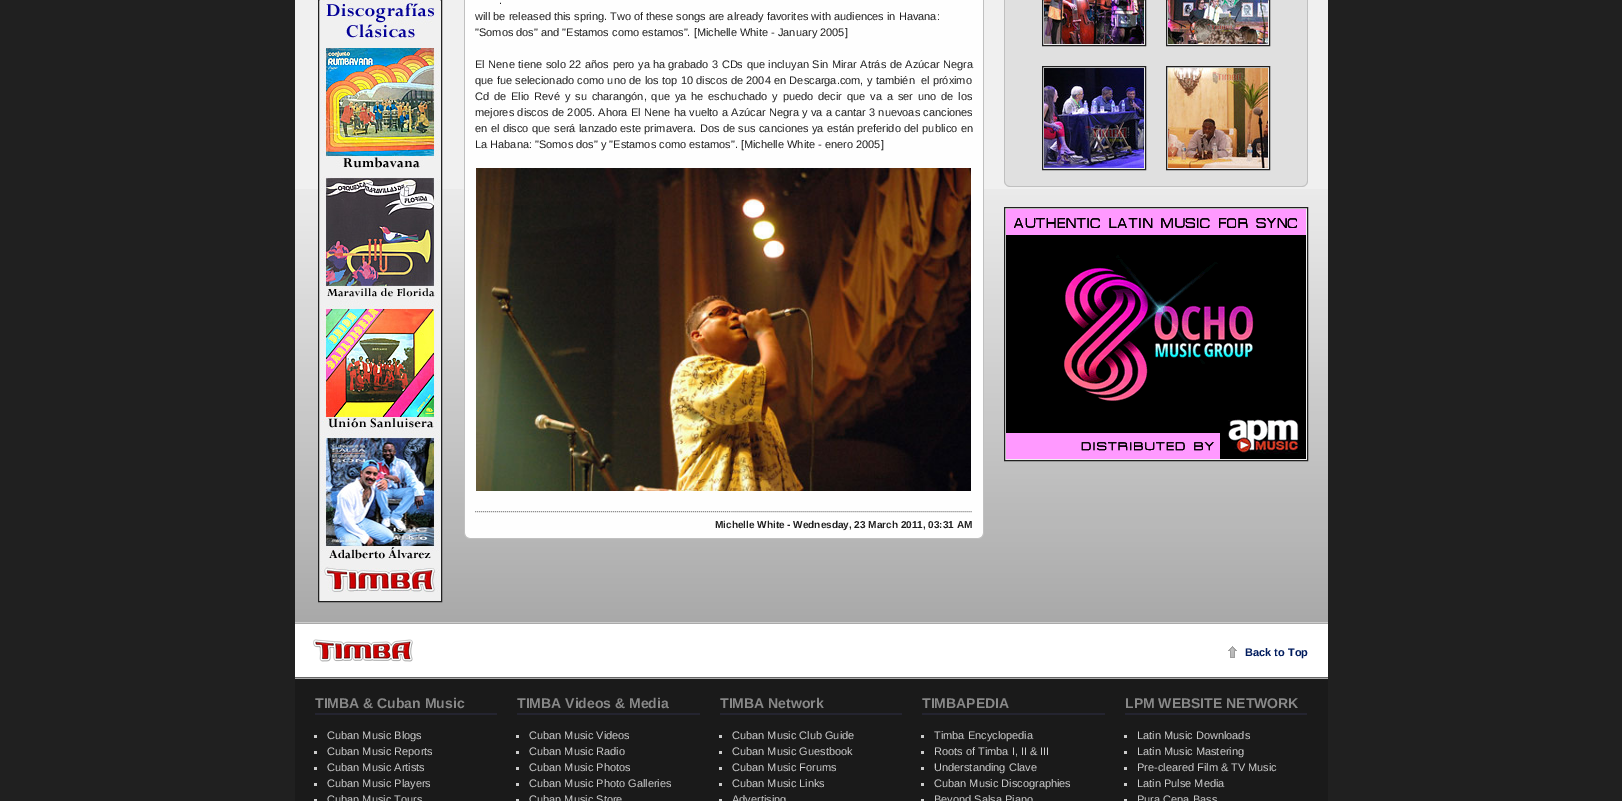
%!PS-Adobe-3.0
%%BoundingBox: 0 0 1622 801
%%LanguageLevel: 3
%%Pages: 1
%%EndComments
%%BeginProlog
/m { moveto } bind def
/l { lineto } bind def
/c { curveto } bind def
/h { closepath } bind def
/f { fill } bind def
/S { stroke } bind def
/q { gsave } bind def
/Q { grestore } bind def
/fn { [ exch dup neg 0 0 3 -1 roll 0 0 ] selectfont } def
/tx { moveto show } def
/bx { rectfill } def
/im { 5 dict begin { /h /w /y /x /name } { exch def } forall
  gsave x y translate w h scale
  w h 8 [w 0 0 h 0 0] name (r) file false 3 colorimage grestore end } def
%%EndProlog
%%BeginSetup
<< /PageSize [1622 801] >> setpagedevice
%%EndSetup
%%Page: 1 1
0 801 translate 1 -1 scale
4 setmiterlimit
0.125 setgray
0 0 1622 801 bx
0.941 setgray
295 0 1033 622 bx
(image0.raw) 295 189 1033 433 im
0.8 setgray
295 622 1033 1 bx
0.941 setgray
319 189 122 412 bx
0.125 setgray
318.5 -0.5 123 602 rectstroke
(image1.raw) 320 0 120 592 im
0.996 setgray
465 -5 m 983 -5 l 983 533 l 983 536 981 538 978 538 c 470 538 l 467 538 465 536 465 533 c h f
0.753 setgray
464 -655 m 984 -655 l 984 533 l 984 536 981 539 978 539 c 470 539 l 467 539 464 536 464 533 c h 465 -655 m 983 -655 l 983 533 l 983 536 981 538 978 538 c 470 538 l 467 538 465 536 465 533 c h eofill
/LiberationSans-Regular 11 fn
0.125 setgray
(.) 499 4 tx
(will be released this spring. Two of these songs are already favorites with audiences in Havana:) 475 20 tx
("Somos dos" and "Estamos como estamos". [Michelle White - January 2005]) 475 36 tx
475 68 m 0.5 0 32 (El Nene tiene solo 22 años pero ya ha) widthshow
668 68 m 0.5 0 32 (grabado 3 CDs que incluyan Sin Mirar Atrás de Azúcar Negra) widthshow
475 84 m 0.25 0 32 (que fue selecionado como uno de los top 10 discos de 2004 en Descarga.com, y también) widthshow
(el próximo) 921 84 tx
475 100 m 1.8 0 32 (Cd de Elio Revé y su charangón, que ya he eschuchado y puedo decir) widthshow
847 100 m 1.8 0 32 (que va a ser uno de los) widthshow
475 116 m 0.25 0 32 (mejores discos de 2005. Ahora El Nene ha vuelto a Azúcar Negra y va a cantar 3 nuevoas canciones) widthshow
475 132 m 0.5 0 32 (en el disco que será lanzado) widthshow
620 132 m 0.4 0 32 (este primavera. Dos de sus canciones ya están preferido del publico en) widthshow
(La Habana: "Somos dos" y "Estamos como estamos". [Michelle White - enero 2005]) 475 148 tx
(image2.raw) 476 168 495 323 im
0.565 setgray
[1 1] 0 setdash
475 511.5 m 973 511.5 l S
/LiberationSans-Bold 10 fn
0.125 setgray
(Michelle White - Wednesday, 23 March 2011, 03:31 AM) 715 528 tx
0.878 setgray
1005 -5 m 1307 -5 l 1307 181 l 1307 184 1305 186 1302 186 c 1010 186 l 1007 186 1005 184 1005 181 c h f
0.753 setgray
1004 -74 m 1308 -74 l 1308 181 l 1308 184 1305 187 1302 187 c 1010 187 l 1007 187 1004 184 1004 181 c h 1005 -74 m 1307 -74 l 1307 181 l 1307 184 1305 186 1302 186 c 1010 186 l 1007 186 1005 184 1005 181 c h eofill
0.933 setgray
1042.5 -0.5 m 1145.5 -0.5 l 1145.5 45.5 l 1042.5 45.5 l h q f Q
0.125 setgray
[] 0 setdash
S
(image3.raw) 1044 0 100 44 im
0.933 setgray
1166.5 -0.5 m 1269.5 -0.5 l 1269.5 45.5 l 1166.5 45.5 l h q f Q
0.125 setgray
S
(image4.raw) 1168 0 100 44 im
0.933 setgray
1042.5 66.5 m 1145.5 66.5 l 1145.5 169.5 l 1042.5 169.5 l h q f Q
0.125 setgray
S
(image5.raw) 1044 68 100 100 im
0.933 setgray
1166.5 66.5 m 1269.5 66.5 l 1269.5 169.5 l 1166.5 169.5 l h q f Q
0.125 setgray
S
(image6.raw) 1168 68 100 100 im
0.941 setgray
1004.5 207.5 m 1307.5 207.5 l 1307.5 460.5 l 1004.5 460.5 l h q f Q
0.125 setgray
S
(image7.raw) 1006 209 300 250 im
1 setgray
295 624 1033 53 bx
0.667 setgray
295 623 1033 1 bx
0.4 setgray
295 677 1033 1 bx
(image8.raw) 313 639 100 23 im
(image9.raw) 1228 646 9 12 im
/LiberationSans-Bold 11 fn
0 0.106 0.365 setrgbcolor
(Back to Top) 1245 656 tx
0.102 setgray
295 679 1033 122 bx
0.667 setgray
295 678 1033 1 bx
0.141 0.141 0.188 setrgbcolor
315 713 182 2 bx
/LiberationSans-Bold 14 fn
0.533 setgray
(TIMBA & Cuban Music) 315 708 tx
0.8 setgray
314 735 3 3 bx
/LiberationSans-Regular 11 fn
(Cuban Music Blogs) 327 739 tx
314 751 3 3 bx
(Cuban Music Reports) 327 755 tx
314 767 3 3 bx
(Cuban Music Artists) 327 771 tx
314 783 3 3 bx
(Cuban Music Players) 327 787 tx
314 799 3 2 bx
(Cuban Music Tours) 327 803 tx
0.141 0.141 0.188 setrgbcolor
517 713 183 2 bx
/LiberationSans-Bold 14 fn
0.533 setgray
(TIMBA Videos & Media) 517 708 tx
0.8 setgray
516 735 3 3 bx
/LiberationSans-Regular 11 fn
(Cuban Music Videos) 529 739 tx
516 751 3 3 bx
(Cuban Music Radio) 529 755 tx
516 767 3 3 bx
(Cuban Music Photos) 529 771 tx
516 783 3 3 bx
(Cuban Music Photo Galleries) 529 787 tx
516 799 3 2 bx
(Cuban Music Store) 529 803 tx
0.141 0.141 0.188 setrgbcolor
720 713 182 2 bx
/LiberationSans-Bold 14 fn
0.533 setgray
(TIMBA Network) 720 708 tx
0.8 setgray
719 735 3 3 bx
/LiberationSans-Regular 11 fn
(Cuban Music Club Guide) 732 739 tx
719 751 3 3 bx
(Cuban Music Guestbook) 732 755 tx
719 767 3 3 bx
(Cuban Music Forums) 732 771 tx
719 783 3 3 bx
(Cuban Music Links) 732 787 tx
719 799 3 2 bx
(Advertising) 732 803 tx
0.141 0.141 0.188 setrgbcolor
922 713 183 2 bx
/LiberationSans-Bold 14 fn
0.533 setgray
(TIMBAPEDIA) 922 708 tx
0.8 setgray
921 735 3 3 bx
/LiberationSans-Regular 11 fn
(Timba Encyclopedia) 934 739 tx
921 751 3 3 bx
(Roots of Timba I, II & III) 934 755 tx
921 767 3 3 bx
(Understanding Clave) 934 771 tx
921 783 3 3 bx
(Cuban Music Discographies) 934 787 tx
921 799 3 2 bx
(Beyond Salsa Piano) 934 803 tx
0.141 0.141 0.188 setrgbcolor
1125 713 182 2 bx
/LiberationSans-Bold 14 fn
0.533 setgray
(LPM WEBSITE NETWORK) 1125 708 tx
0.8 setgray
1124 735 3 3 bx
/LiberationSans-Regular 11 fn
(Latin Music Downloads) 1137 739 tx
1124 751 3 3 bx
(Latin Music Mastering) 1137 755 tx
1124 767 3 3 bx
(Pre-cleared Film & TV Music) 1137 771 tx
1124 783 3 3 bx
(Latin Pulse Media) 1137 787 tx
1124 799 3 2 bx
(Pura Cepa Bass) 1137 803 tx
showpage
%%EOF
